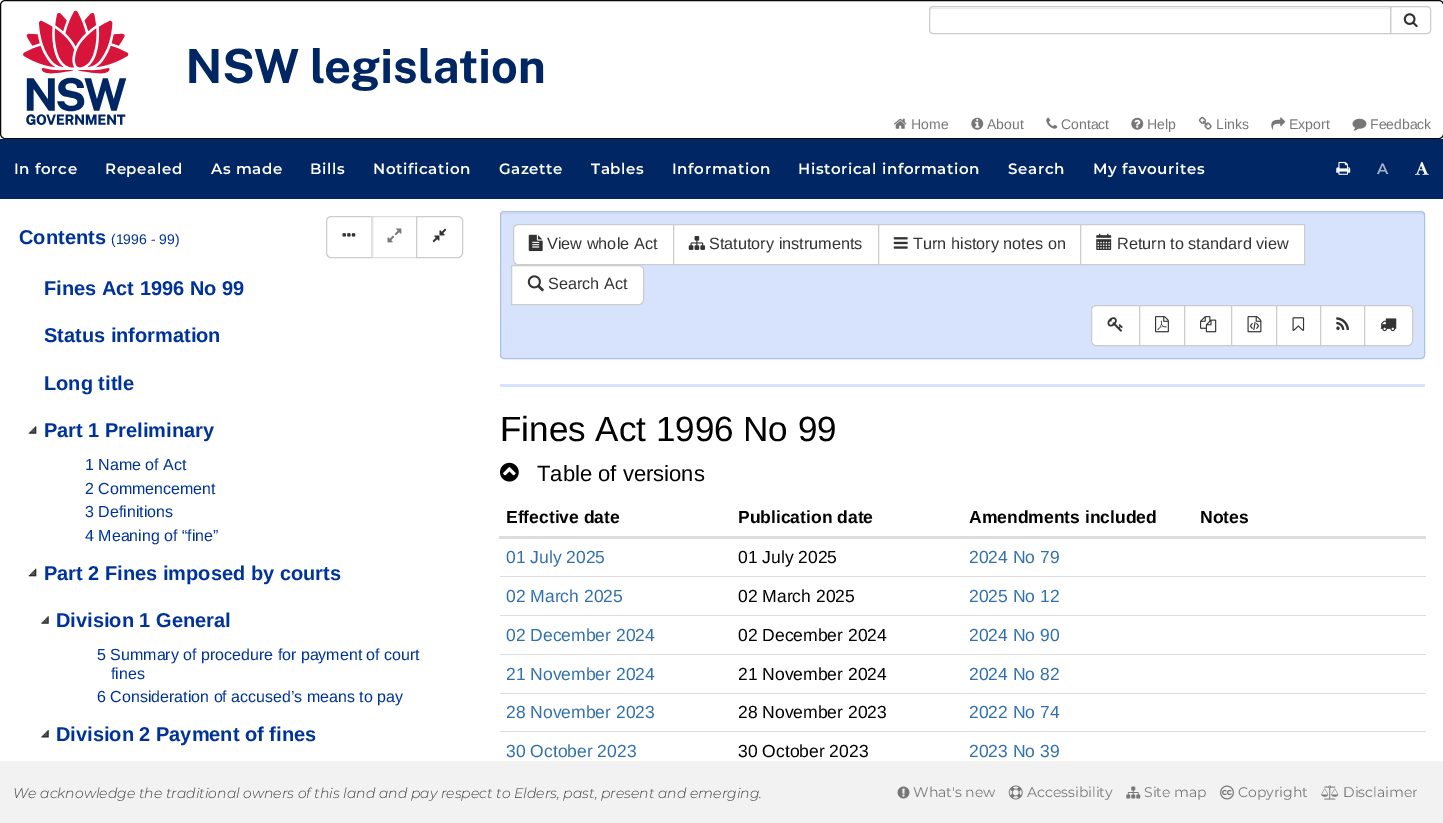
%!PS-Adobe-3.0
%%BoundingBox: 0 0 1443 823
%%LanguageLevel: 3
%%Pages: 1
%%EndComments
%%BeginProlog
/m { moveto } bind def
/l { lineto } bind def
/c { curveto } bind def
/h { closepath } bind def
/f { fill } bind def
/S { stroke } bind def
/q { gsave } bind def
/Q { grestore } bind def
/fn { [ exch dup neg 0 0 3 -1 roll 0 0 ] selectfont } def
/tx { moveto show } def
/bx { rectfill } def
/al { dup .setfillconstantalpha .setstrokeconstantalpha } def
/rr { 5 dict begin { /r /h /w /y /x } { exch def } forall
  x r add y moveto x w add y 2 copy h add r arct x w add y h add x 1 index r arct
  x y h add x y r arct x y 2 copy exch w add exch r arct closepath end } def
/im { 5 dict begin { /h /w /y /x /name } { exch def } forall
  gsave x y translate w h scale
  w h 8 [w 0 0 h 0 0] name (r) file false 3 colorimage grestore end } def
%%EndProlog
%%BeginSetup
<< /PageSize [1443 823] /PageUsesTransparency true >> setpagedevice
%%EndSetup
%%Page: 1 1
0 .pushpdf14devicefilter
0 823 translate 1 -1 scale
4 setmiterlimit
1 setgray
0 0 1443 823 bx
0.031 setgray
0.5 0.5 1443 138 4.5 rr S
(image0.raw) 23 10 521 115 im
0.8 setgray
1390.5 6.5 m 1427 6.5 l 1429 6.5 1430.5 8 1430.5 10 c 1430.5 30 l 1430.5 32 1429 33.5 1427 33.5 c 1390.5 33.5 l h S
1 setgray
933 6 m 1391 6 l 1391 34 l 933 34 l 931 34 929 32 929 30 c 929 10 l 929 8 931 6 933 6 c h f
0.925 setgray
932 9 m 1390 9 l 1390 8 l 932 8 l 931 8 930 9 930 11 c 930 10 931 9 932 9 c h f
0.8 setgray
933 6.5 m 1390.5 6.5 l 1390.5 33.5 l 933 33.5 l 931 33.5 929.5 32 929.5 30 c 929.5 10 l 929.5 8 931 6.5 933 6.5 c h S
(image1.raw) 1403 13 15 15 im
(image2.raw) 894 118 13 11 im
/LiberationSans-Regular 14 fn
0.467 setgray
(Home) 911 129 tx
(image3.raw) 971 117 13 13 im
(About) 987 129 tx
(image4.raw) 1046 117 12 12 im
(Contact) 1061 129 tx
(image5.raw) 1131 117 13 13 im
(Help) 1147 129 tx
(image6.raw) 1198 116 14 14 im
(Links) 1216 129 tx
(image7.raw) 1271 117 15 13 im
(Export) 1289 129 tx
(image8.raw) 1352 118 15 13 im
(Feedback) 1370 129 tx
0 0.149 0.392 setrgbcolor
0 139 1443 60 bx
/Montserrat-SemiBold 15 fn
1 setgray
14 174 m 0.6 0 (In force) ashow
105 174 m 0.6 0 (Repealed) ashow
211 174 m 0.6 0 (As made) ashow
310 174 m 0.6 0 (Bills) ashow
373 174 m 0.6 0 (Notification) ashow
499 174 m 0.6 0 (Gazette) ashow
591 174 m 0.6 0 (Tables) ashow
672 174 m 0.6 0 (Information) ashow
798 174 m 0.6 0 (Historical information) ashow
1008 174 m 0.6 0 (Search) ashow
1093 174 m 0.6 0 (My favourites) ashow
(image9.raw) 1336 161 15 14 im
0.651 0.702 0.788 setrgbcolor
1377 174 m 0.6 0 (A) ashow
(image10.raw) 1415 161 14 14 im
/LiberationSans-Bold 20 fn
0 0.2 0.6 setrgbcolor
(Contents) 19 244 tx
/LiberationSans-Regular 14 fn
(\(1996 - 99\)) 111 244 tx
0.8 setgray
331 216.5 m 372.5 216.5 l 372.5 257.5 l 331 257.5 l 328.5 257.5 326.5 255.5 326.5 253 c 326.5 221 l 326.5 218.5 328.5 216.5 331 216.5 c h S
(image11.raw) 342 233 14 4 im
0.65 al
1 setgray
371 216 2 42 bx
0.8 setgray
371.5 216.5 46 41 rectstroke
1 al
(image12.raw) 387 228 15 15 im
1 setgray
416.5 216.5 m 458 216.5 l 460.5 216.5 462.5 218.5 462.5 221 c 462.5 253 l 462.5 255.5 460.5 257.5 458 257.5 c 416.5 257.5 l h q f Q
0.8 setgray
S
(image13.raw) 432 228 15 15 im
/LiberationSans-Bold 20 fn
0 0.2 0.6 setrgbcolor
(Fines Act 1996 No 99) 44 295 tx
(Status information) 44 342 tx
(Long title) 44 390 tx
(image14.raw) 28 426 9 8 im
(Part 1 Preliminary) 44 437 tx
/LiberationSans-Regular 16 fn
(1 Name of Act) 85 470 tx
(2 Commencement) 85 494 tx
(3 Definitions) 85 517 tx
(4 Meaning of “fine”) 85 541 tx
(image15.raw) 28 568 9 9 im
/LiberationSans-Bold 20 fn
(Part 2 Fines imposed by courts) 44 580 tx
(image16.raw) 41 616 8 8 im
(Division 1 General) 56 627 tx
/LiberationSans-Regular 16 fn
(5 Summary of procedure for payment of court) 97 660 tx
(fines) 111 679 tx
(6 Consideration of accused’s means to pay) 97 702 tx
(image17.raw) 41 729 8 9 im
/LiberationSans-Bold 20 fn
(Division 2 Payment of fines) 56 741 tx
0.843 0.886 0.988 setrgbcolor
500 211 925 148 4 rr f
0.8 0.843 0.937 setrgbcolor
504 214 m 1421 214 l 1423 214 1424 215 1424 216 c 1424 214 1423 213 1422 213 c 504 213 l 502 213 501 214 501 216 c 501 215 502 214 504 214 c h f
0.682 0.749 0.914 setrgbcolor
500.5 211.5 924 147 3.5 rr S
1 setgray
518 224.5 m 673.5 224.5 l 673.5 264.5 l 518 264.5 l 515.5 264.5 513.5 262.5 513.5 260 c 513.5 229 l 513.5 226.5 515.5 224.5 518 224.5 c h q f Q
0.8 setgray
S
(image18.raw) 528 234 15 18 im
/LiberationSans-Regular 16.25 fn
0.2 setgray
(View whole Act) 547 249 tx
1 setgray
673.5 224.5 m 878.5 224.5 l 878.5 264.5 l 673.5 264.5 l h q f Q
0.8 setgray
S
(image19.raw) 688 236 17 14 im
0.2 setgray
(Statutory instruments) 709 249 tx
1 setgray
878.5 224.5 m 1080.5 224.5 l 1080.5 264.5 l 878.5 264.5 l h q f Q
0.8 setgray
S
(image20.raw) 893 237 15 12 im
0.2 setgray
(Turn history notes on) 913 249 tx
1 setgray
1080.5 224.5 m 1304.5 224.5 l 1304.5 264.5 l 1080.5 264.5 l h q f Q
0.8 setgray
S
(image21.raw) 1096 233 16 17 im
0.2 setgray
(Return to standard view) 1117 249 tx
1 setgray
511.5 265.5 m 639 265.5 l 641.5 265.5 643.5 267.5 643.5 270 c 643.5 300 l 643.5 302.5 641.5 304.5 639 304.5 c 511.5 304.5 l h q f Q
0.8 setgray
S
(image22.raw) 527 275 17 17 im
0.2 setgray
(Search Act) 548 289 tx
1 setgray
1096 305.5 m 1139.5 305.5 l 1139.5 345.5 l 1096 345.5 l 1093.5 345.5 1091.5 343.5 1091.5 341 c 1091.5 310 l 1091.5 307.5 1093.5 305.5 1096 305.5 c h q f Q
0.8 setgray
S
(image23.raw) 1107 317 16 15 im
1 setgray
1139.5 305.5 m 1184.5 305.5 l 1184.5 345.5 l 1139.5 345.5 l h q f Q
0.8 setgray
S
(image24.raw) 1155 316 14 17 im
1 setgray
1185 306 46 39 bx
0.8 setgray
1184.5 305.5 48 40 rectstroke
(image25.raw) 1200 316 17 17 im
1 setgray
1232 306 44 39 bx
0.8 setgray
1231.5 305.5 46 40 rectstroke
(image26.raw) 1247 316 15 17 im
1 setgray
1276.5 305.5 m 1320.5 305.5 l 1320.5 345.5 l 1276.5 345.5 l h q f Q
0.8 setgray
S
(image27.raw) 1292 317 13 14 im
1 setgray
1320.5 305.5 m 1364.5 305.5 l 1364.5 345.5 l 1320.5 345.5 l h q f Q
0.8 setgray
S
(image28.raw) 1336 317 13 13 im
1 setgray
1364.5 305.5 m 1408 305.5 l 1410.5 305.5 1412.5 307.5 1412.5 310 c 1412.5 341 l 1412.5 343.5 1410.5 345.5 1408 345.5 c 1364.5 345.5 l h q f Q
0.8 setgray
S
(image29.raw) 1380 318 17 14 im
0.843 0.886 0.988 setrgbcolor
500 384 925 3 bx
/LiberationSans-Regular 35 fn
0 setgray
(Fines Act 1996 No 99) 500 441 tx
(image30.raw) 500 462 19 20 im
/LiberationSans-Regular 22 fn
(Table of versions) 537 481 tx
/LiberationSans-Bold 17.5 fn
(Effective date) 506 523 tx
(Publication date) 738 523 tx
(Amendments included) 969 523 tx
0.867 setgray
499 536 927 3 bx
0 setgray
(Notes) 1200 523 tx
/LiberationSans-Regular 17.5 fn
0.192 0.439 0.671 setrgbcolor
(01 July 2025) 506 563 tx
0 setgray
(01 July 2025) 738 563 tx
0.192 0.439 0.671 setrgbcolor
(2024 No 79) 969 563 tx
0.867 setgray
500 576 926 1 bx
0.192 0.439 0.671 setrgbcolor
(02 March 2025) 506 602 tx
0 setgray
(02 March 2025) 738 602 tx
0.192 0.439 0.671 setrgbcolor
(2025 No 12) 969 602 tx
0.867 setgray
500 615 926 1 bx
0.192 0.439 0.671 setrgbcolor
(02 December 2024) 506 641 tx
0 setgray
(02 December 2024) 738 641 tx
0.192 0.439 0.671 setrgbcolor
(2024 No 90) 969 641 tx
0.867 setgray
500 654 926 1 bx
0.192 0.439 0.671 setrgbcolor
(21 November 2024) 506 680 tx
0 setgray
(21 November 2024) 738 680 tx
0.192 0.439 0.671 setrgbcolor
(2024 No 82) 969 680 tx
0.867 setgray
500 693 926 1 bx
0.192 0.439 0.671 setrgbcolor
(28 November 2023) 506 718 tx
0 setgray
(28 November 2023) 738 718 tx
0.192 0.439 0.671 setrgbcolor
(2022 No 74) 969 718 tx
0.867 setgray
500 731 926 1 bx
0.192 0.439 0.671 setrgbcolor
(30 October 2023) 506 757 tx
0 setgray
(30 October 2023) 738 757 tx
0.192 0.439 0.671 setrgbcolor
(2023 No 39) 969 757 tx
0.949 setgray
0 761 1443 62 bx
/Montserrat-LightItalic 14 fn
0.239 setgray
(We acknowledge the traditional owners of this land and pay respect to Elders, past, present and emerging.) 13 798 tx
(image31.raw) 897 786 13 13 im
/Montserrat-Regular 14 fn
0.467 setgray
(What's new) 913 797 tx
(image32.raw) 1008 785 15 15 im
(Accessibility) 1027 797 tx
(image33.raw) 1126 786 15 13 im
(Site map) 1144 797 tx
(image34.raw) 1220 785 14 15 im
(Copyright) 1238 797 tx
(image35.raw) 1321 785 18 15 im
(Disclaimer) 1343 797 tx
.poppdf14devicefilter showpage
%%EOF
